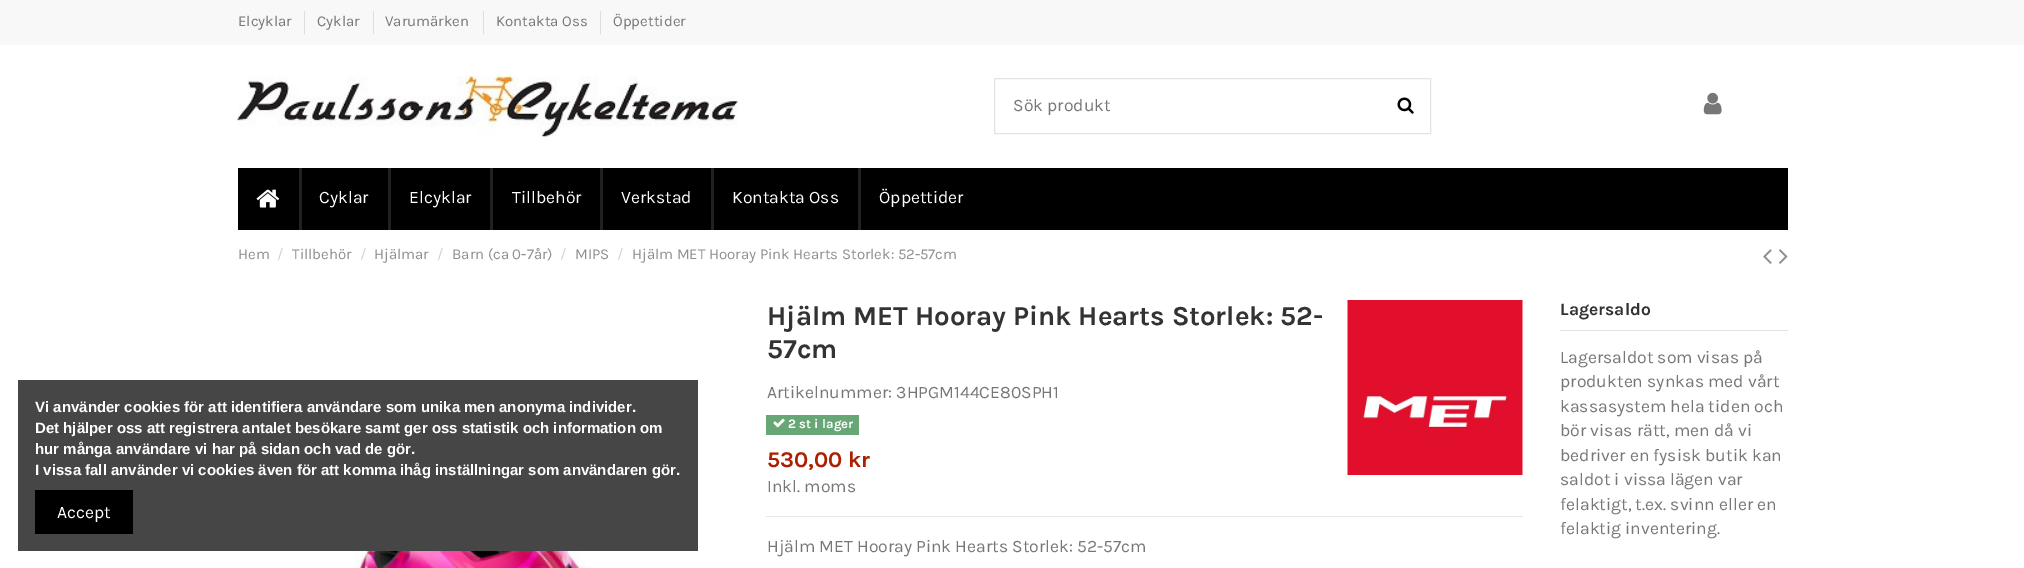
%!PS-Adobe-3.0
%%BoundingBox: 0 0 2024 568
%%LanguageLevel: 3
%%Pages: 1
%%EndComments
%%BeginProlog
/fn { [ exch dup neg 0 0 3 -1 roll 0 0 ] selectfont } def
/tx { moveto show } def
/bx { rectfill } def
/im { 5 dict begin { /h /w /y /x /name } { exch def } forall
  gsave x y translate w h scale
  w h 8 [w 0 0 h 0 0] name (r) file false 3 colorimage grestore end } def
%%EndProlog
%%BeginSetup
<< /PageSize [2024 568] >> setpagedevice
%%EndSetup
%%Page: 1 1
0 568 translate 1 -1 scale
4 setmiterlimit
1 setgray
0 0 2024 568 bx
0.973 setgray
0 0 2024 45 bx
/Karla-Regular 15 fn
0.467 setgray
(Elcyklar) 238 26 tx
0.871 setgray
304 11 1 23 bx
0.467 setgray
(Cyklar) 317 26 tx
0.871 setgray
373 11 1 23 bx
0.467 setgray
(Varumärken) 385 26 tx
0.871 setgray
483 11 1 23 bx
0.467 setgray
(Kontakta Oss) 496 26 tx
0.871 setgray
600 11 1 23 bx
0.467 setgray
(Öppettider) 613 26 tx
(image0.raw) 237 76 501 61 im
0.89 setgray
994.5 78.5 436 55 rectstroke
/Karla-Regular 17.5 fn
0.467 setgray
(Sök produkt) 1013 111 tx
(image1.raw) 1397 97 17 17 im
(image2.raw) 1703 92 19 23 im
0 setgray
238 168 1550 62 bx
(image3.raw) 256 189 24 19 im
0.129 setgray
299 168 3 62 bx
1 setgray
(Cyklar) 319 203 tx
0.129 setgray
388 168 3 62 bx
1 setgray
(Elcyklar) 409 203 tx
0.129 setgray
490 168 3 62 bx
1 setgray
(Tillbehör) 512 203 tx
0.129 setgray
600 168 3 62 bx
1 setgray
(Verkstad) 621 203 tx
0.129 setgray
711 168 3 62 bx
1 setgray
(Kontakta Oss) 732 203 tx
0.129 setgray
858 168 3 62 bx
1 setgray
(Öppettider) 879 203 tx
/Karla-Regular 15 fn
0.561 setgray
(Hem) 238 259 tx
0.824 setgray
(/) 277 259 tx
0.561 setgray
(Tillbehör) 292 259 tx
0.824 setgray
(/) 360 259 tx
0.561 setgray
(Hjälmar) 374 259 tx
0.824 setgray
(/) 437 259 tx
0.561 setgray
(Barn \(ca 0-7år\)) 452 259 tx
0.824 setgray
(/) 560 259 tx
0.561 setgray
(MIPS) 575 259 tx
0.824 setgray
(/) 617 259 tx
0.561 setgray
(Hjälm MET Hooray Pink Hearts Storlek: 52-57cm) 632 259 tx
(image4.raw) 1763 249 9 15 im
(image5.raw) 1779 249 9 15 im
0.906 setgray
766 516 757 1 bx
/Karla-Bold 27.5 fn
0.2 setgray
(Hjälm MET Hooray Pink Hearts Storlek: 52-) 767 325 tx
(57cm) 767 358 tx
(image6.raw) 1347 300 176 175 im
/Karla-Regular 17.5 fn
0.467 setgray
(Artikelnummer: 3HPGM144CE80SPH1) 767 398 tx
0.404 0.651 0.459 setrgbcolor
766 415 93 20 bx
(image7.raw) 773 418 12 10 im
/Karla-Bold 13 fn
1 setgray
(2 st i lager) 788 428 tx
/Karla-Bold 22.5 fn
0.678 0.122 0 setrgbcolor
(530,00 kr) 767 467 tx
/Karla-Regular 17.5 fn
0.467 setgray
(Inkl. moms) 767 492 tx
(Hjälm MET Hooray Pink Hearts Storlek: 52-57cm) 767 552 tx
0.89 setgray
1560 330 228 1 bx
/Karla-Bold 17.5 fn
0.2 setgray
(Lagersaldo) 1560 315 tx
/Karla-Regular 17.5 fn
0.467 setgray
(Lagersaldot som visas på) 1560 363 tx
(produkten synkas med vårt) 1560 387 tx
(kassasystem hela tiden och) 1560 412 tx
(bör visas rätt, men då vi) 1560 436 tx
(bedriver en fysisk butik kan) 1560 461 tx
(saldot i vissa lägen var) 1560 485 tx
(felaktigt, t.ex. svinn eller en) 1560 510 tx
(felaktig inventering.) 1560 534 tx
(image8.raw) 355 551 230 17 im
0.275 setgray
18 380 680 171 bx
/LiberationSans-Bold 15 fn
1 setgray
(Vi använder cookies för att identifiera användare som unika men anonyma individer.) 35 412 tx
(Det hjälper oss att registrera antalet besökare samt ger oss statistik och information om) 35 433 tx
(hur många användare vi har på sidan och vad de gör.) 35 454 tx
(I vissa fall använder vi cookies även för att komma ihåg inställningar som användaren gör.) 35 475 tx
0 setgray
35 490 98 44 bx
/Karla-Regular 17.5 fn
1 setgray
(Accept) 57 518 tx
showpage
%%EOF
